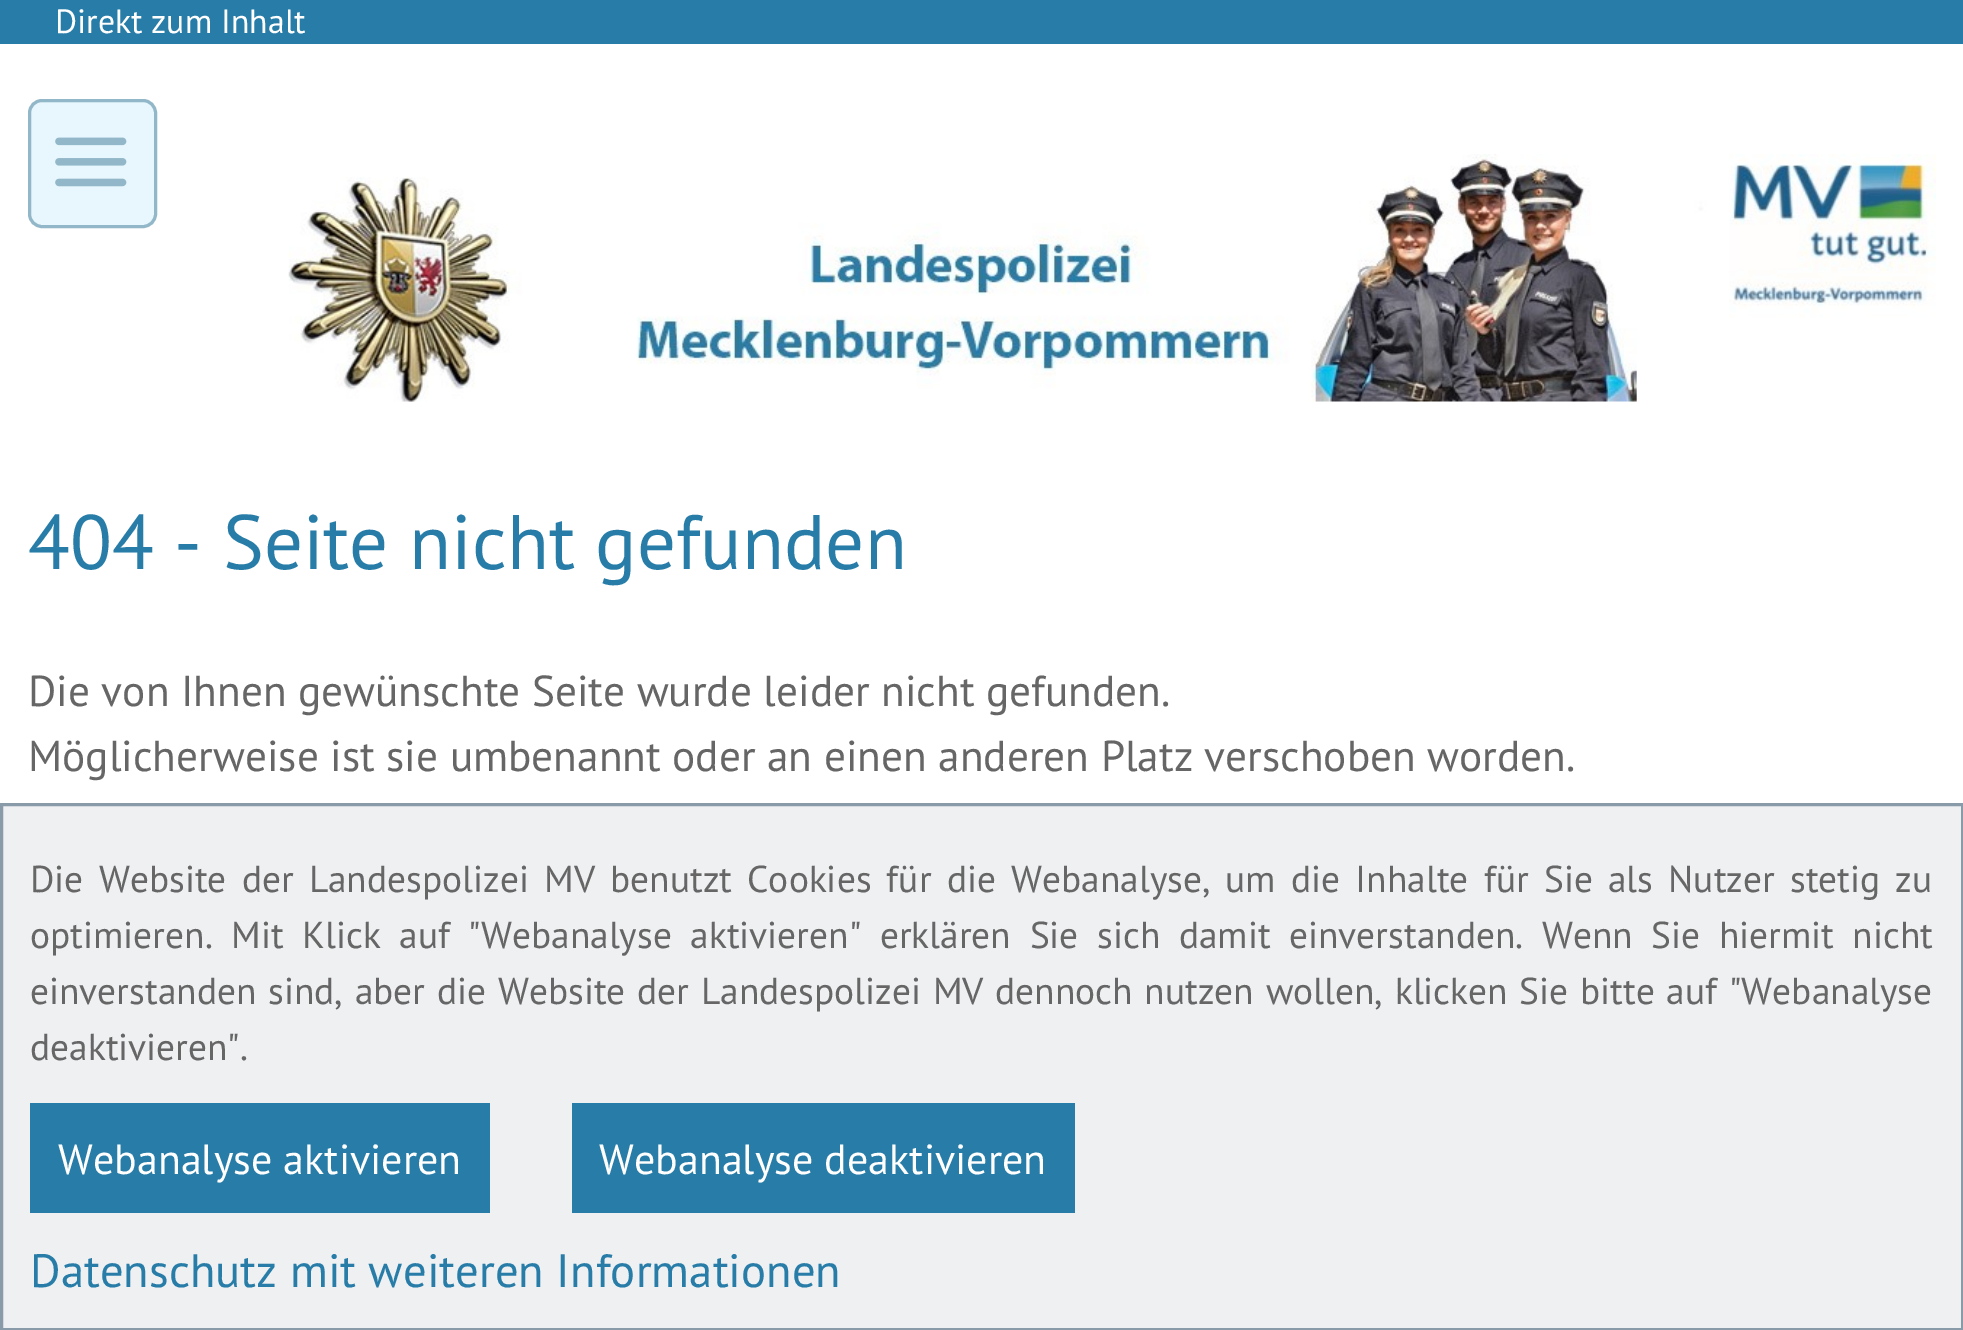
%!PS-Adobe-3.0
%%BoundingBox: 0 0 1963 1330
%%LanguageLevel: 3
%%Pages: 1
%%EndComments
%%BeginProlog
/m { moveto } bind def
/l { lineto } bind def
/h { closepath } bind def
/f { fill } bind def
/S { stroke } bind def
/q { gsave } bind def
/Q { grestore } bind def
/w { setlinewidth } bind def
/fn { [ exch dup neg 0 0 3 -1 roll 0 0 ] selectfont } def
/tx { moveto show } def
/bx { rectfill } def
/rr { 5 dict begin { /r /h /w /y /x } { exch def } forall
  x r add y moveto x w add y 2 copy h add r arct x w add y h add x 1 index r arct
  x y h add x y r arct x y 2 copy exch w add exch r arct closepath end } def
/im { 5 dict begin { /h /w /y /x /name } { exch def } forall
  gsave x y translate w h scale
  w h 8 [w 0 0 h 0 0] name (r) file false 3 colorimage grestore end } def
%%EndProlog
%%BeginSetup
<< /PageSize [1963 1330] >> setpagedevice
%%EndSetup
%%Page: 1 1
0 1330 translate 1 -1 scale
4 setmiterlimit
1 setgray
0 0 1963 1330 bx
0.157 0.49 0.659 setrgbcolor
0 0 1963 44 bx
/PTSans-Regular 33.75 fn
1 setgray
(Direkt zum Inhalt) 55 33 tx
0.906 0.969 0.992 setrgbcolor
29.5 100.5 126 126 12.5 rr q f Q
0.573 0.718 0.788 setrgbcolor
3 w
S
(image0.raw) 55 137 72 50 im
(image1.raw) 288 154 1648 248 im
/PTSans-Regular 77 fn
0.157 0.49 0.659 setrgbcolor
(404 - Seite nicht gefunden) 28 569 tx
/PTSans-Regular 43.3 fn
0.4 setgray
(Die von Ihnen gewünschte Seite wurde leider nicht gefunden.) 28 706 tx
(Möglicherweise ist sie umbenannt oder an einen anderen Platz verschoben worden.) 28 771 tx
0.933 0.941 0.949 setrgbcolor
1.5 804.5 m 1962.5 804.5 l 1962.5 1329.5 l 1.5 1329.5 l h q f Q
0.537 0.604 0.663 setrgbcolor
S
/PTSans-Regular 37.4 fn
0.4 setgray
30 892 m 5.25 0 32 (Die Website der Landespolizei MV benutzt Cookies für die Webanalyse, um die Inhalte für Sie als Nutzer stetig zu) widthshow
30 948 m 8.6 0 32 (optimieren. Mit Klick auf "Webanalyse aktivieren" erklären Sie sich damit einverstanden. Wenn Sie hiermit nicht) widthshow
30 1004 m 1.8 0 32 (einverstanden sind, aber die Website der Landespolizei MV dennoch nutzen wollen, klicken Sie bitte auf "Webanalyse) widthshow
(deaktivieren".) 30 1060 tx
0.157 0.49 0.659 setrgbcolor
30 1103 460 110 bx
/PTSans-Regular 42 fn
1 setgray
(Webanalyse aktivieren) 58 1174 tx
0.157 0.49 0.659 setrgbcolor
572 1103 503 110 bx
1 setgray
(Webanalyse deaktivieren) 599 1174 tx
/PTSans-Regular 46.75 fn
0.157 0.49 0.659 setrgbcolor
(Datenschutz mit weiteren Informationen) 30 1287 tx
showpage
%%EOF
